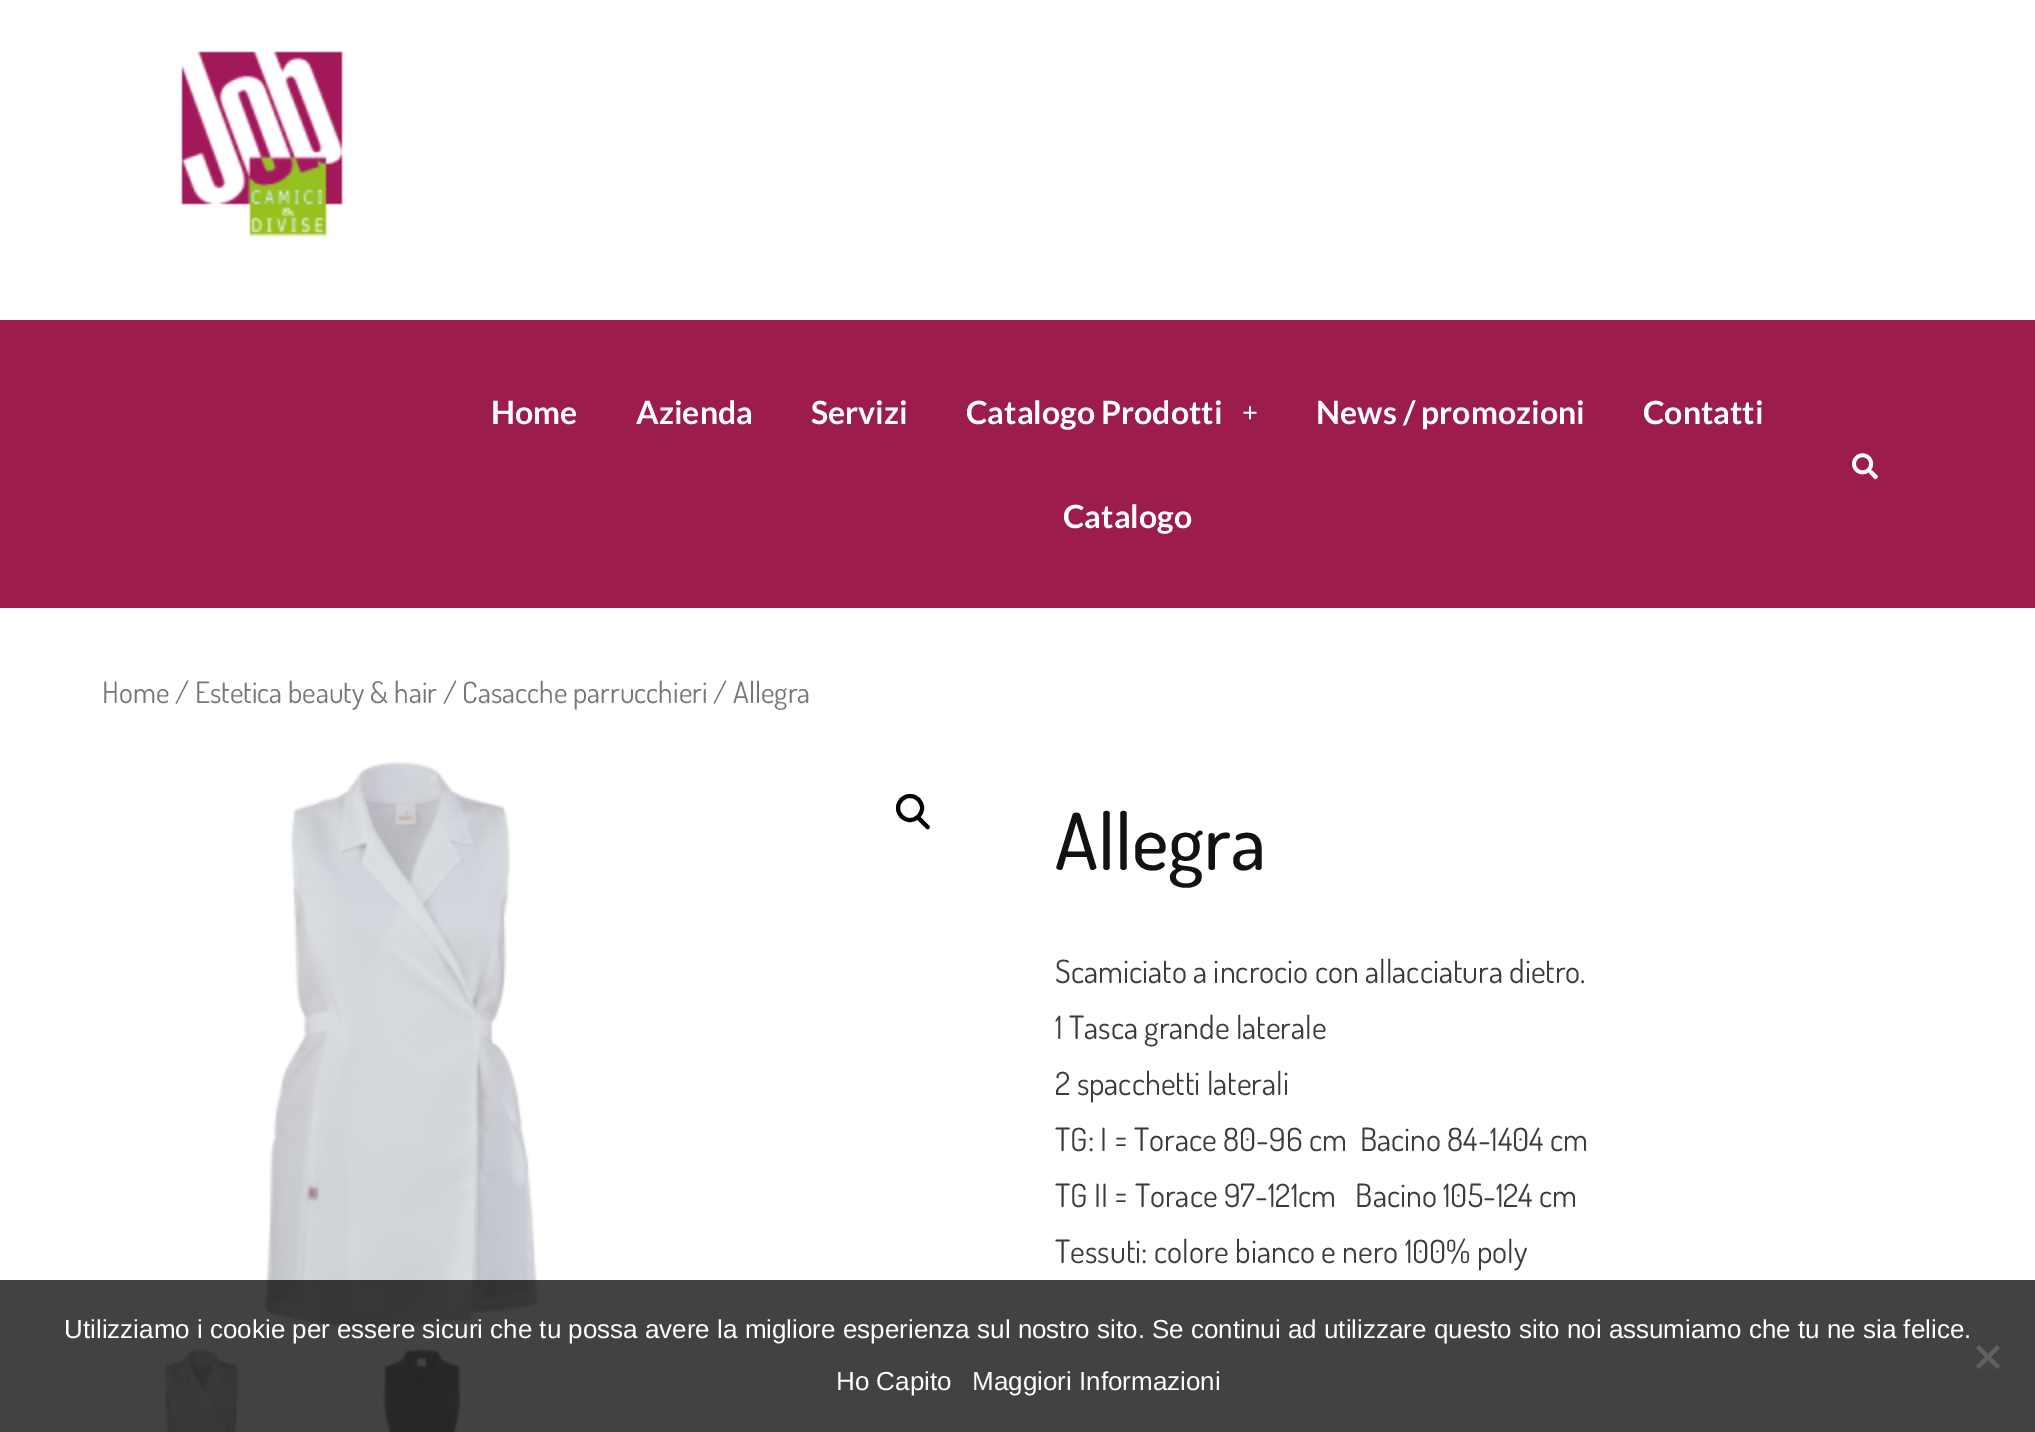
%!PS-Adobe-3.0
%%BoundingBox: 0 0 2035 1432
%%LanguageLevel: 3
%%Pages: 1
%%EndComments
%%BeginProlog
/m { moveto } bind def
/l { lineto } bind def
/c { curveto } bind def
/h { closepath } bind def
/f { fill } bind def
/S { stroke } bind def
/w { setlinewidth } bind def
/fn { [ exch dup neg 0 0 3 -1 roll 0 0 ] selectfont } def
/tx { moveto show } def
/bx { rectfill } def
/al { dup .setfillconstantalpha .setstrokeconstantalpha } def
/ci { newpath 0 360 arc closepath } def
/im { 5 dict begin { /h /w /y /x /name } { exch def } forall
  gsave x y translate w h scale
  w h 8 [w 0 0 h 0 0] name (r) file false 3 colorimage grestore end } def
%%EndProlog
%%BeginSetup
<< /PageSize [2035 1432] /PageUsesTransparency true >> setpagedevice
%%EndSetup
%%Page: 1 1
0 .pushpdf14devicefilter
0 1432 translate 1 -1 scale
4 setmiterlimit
1 setgray
0 0 2035 1432 bx
(image0.raw) 181 51 162 186 im
0.612 0.114 0.302 setrgbcolor
0 320 2035 288 bx
/Lato-Bold 32 fn
1 setgray
(Home) 491 424 tx
(Azienda) 636 424 tx
(Servizi) 811 424 tx
(Catalogo Prodotti) 966 424 tx
/LiberationSerif-Bold 28 fn
(+) 1242 422 tx
/Lato-Bold 32 fn
(News / promozioni) 1316 424 tx
(Contatti) 1643 424 tx
(Catalogo) 1063 528 tx
(image1.raw) 1852 453 26 27 im
/Dosis-Regular 29.4 fn
0.463 setgray
(Home / Estetica beauty & hair / Casacche parrucchieri / Allegra) 102 703 tx
(image2.raw) 263 761 276 566 im
0 setgray
4 w
910 808 12 ci S
917.5 817 m 918.5 816.5 919.5 816.5 920.5 817 c 929 825.5 l 930 826.5 930 828 929 828.5 c 928 829.5 927 829.5 926 828.5 c 917.5 820 l 917 819.5 917 818 917.5 817 c h f
(image3.raw) 164 1349 75 83 im
(image4.raw) 383 1349 78 83 im
/Dosis-Medium 78 fn
0.071 setgray
(Allegra) 1055 870 tx
/Dosis-Regular 32 fn
0.235 setgray
(Scamiciato a incrocio con allacciatura dietro.) 1055 983 tx
(1 Tasca grande laterale) 1055 1039 tx
(2 spacchetti laterali) 1055 1095 tx
(TG: I = Torace 80-96 cm  Bacino 84-1404 cm) 1055 1151 tx
(TG II = Torace 97-121cm   Bacino 105-124 cm) 1055 1207 tx
(Tessuti: colore bianco e nero 100% poly) 1055 1263 tx
0.74 al
0 setgray
0 1280 2035 152 bx
/LiberationSans-Regular 26 fn
1 al
1 setgray
(Utilizziamo i cookie per essere sicuri che tu possa avere la migliore esperienza sul nostro sito. Se continui ad utilizzare questo sito noi assumiamo che tu ne sia felice.) 64 1338 tx
0.38 setgray
1997 1345 m 2000 1348 l 1979 1369 l 1976 1366 l h f
1976 1348 m 1979 1345 l 2000 1366 l 1997 1369 l h f
1 setgray
(Ho Capito) 836 1390 tx
(Maggiori Informazioni) 972 1390 tx
.poppdf14devicefilter showpage
%%EOF
